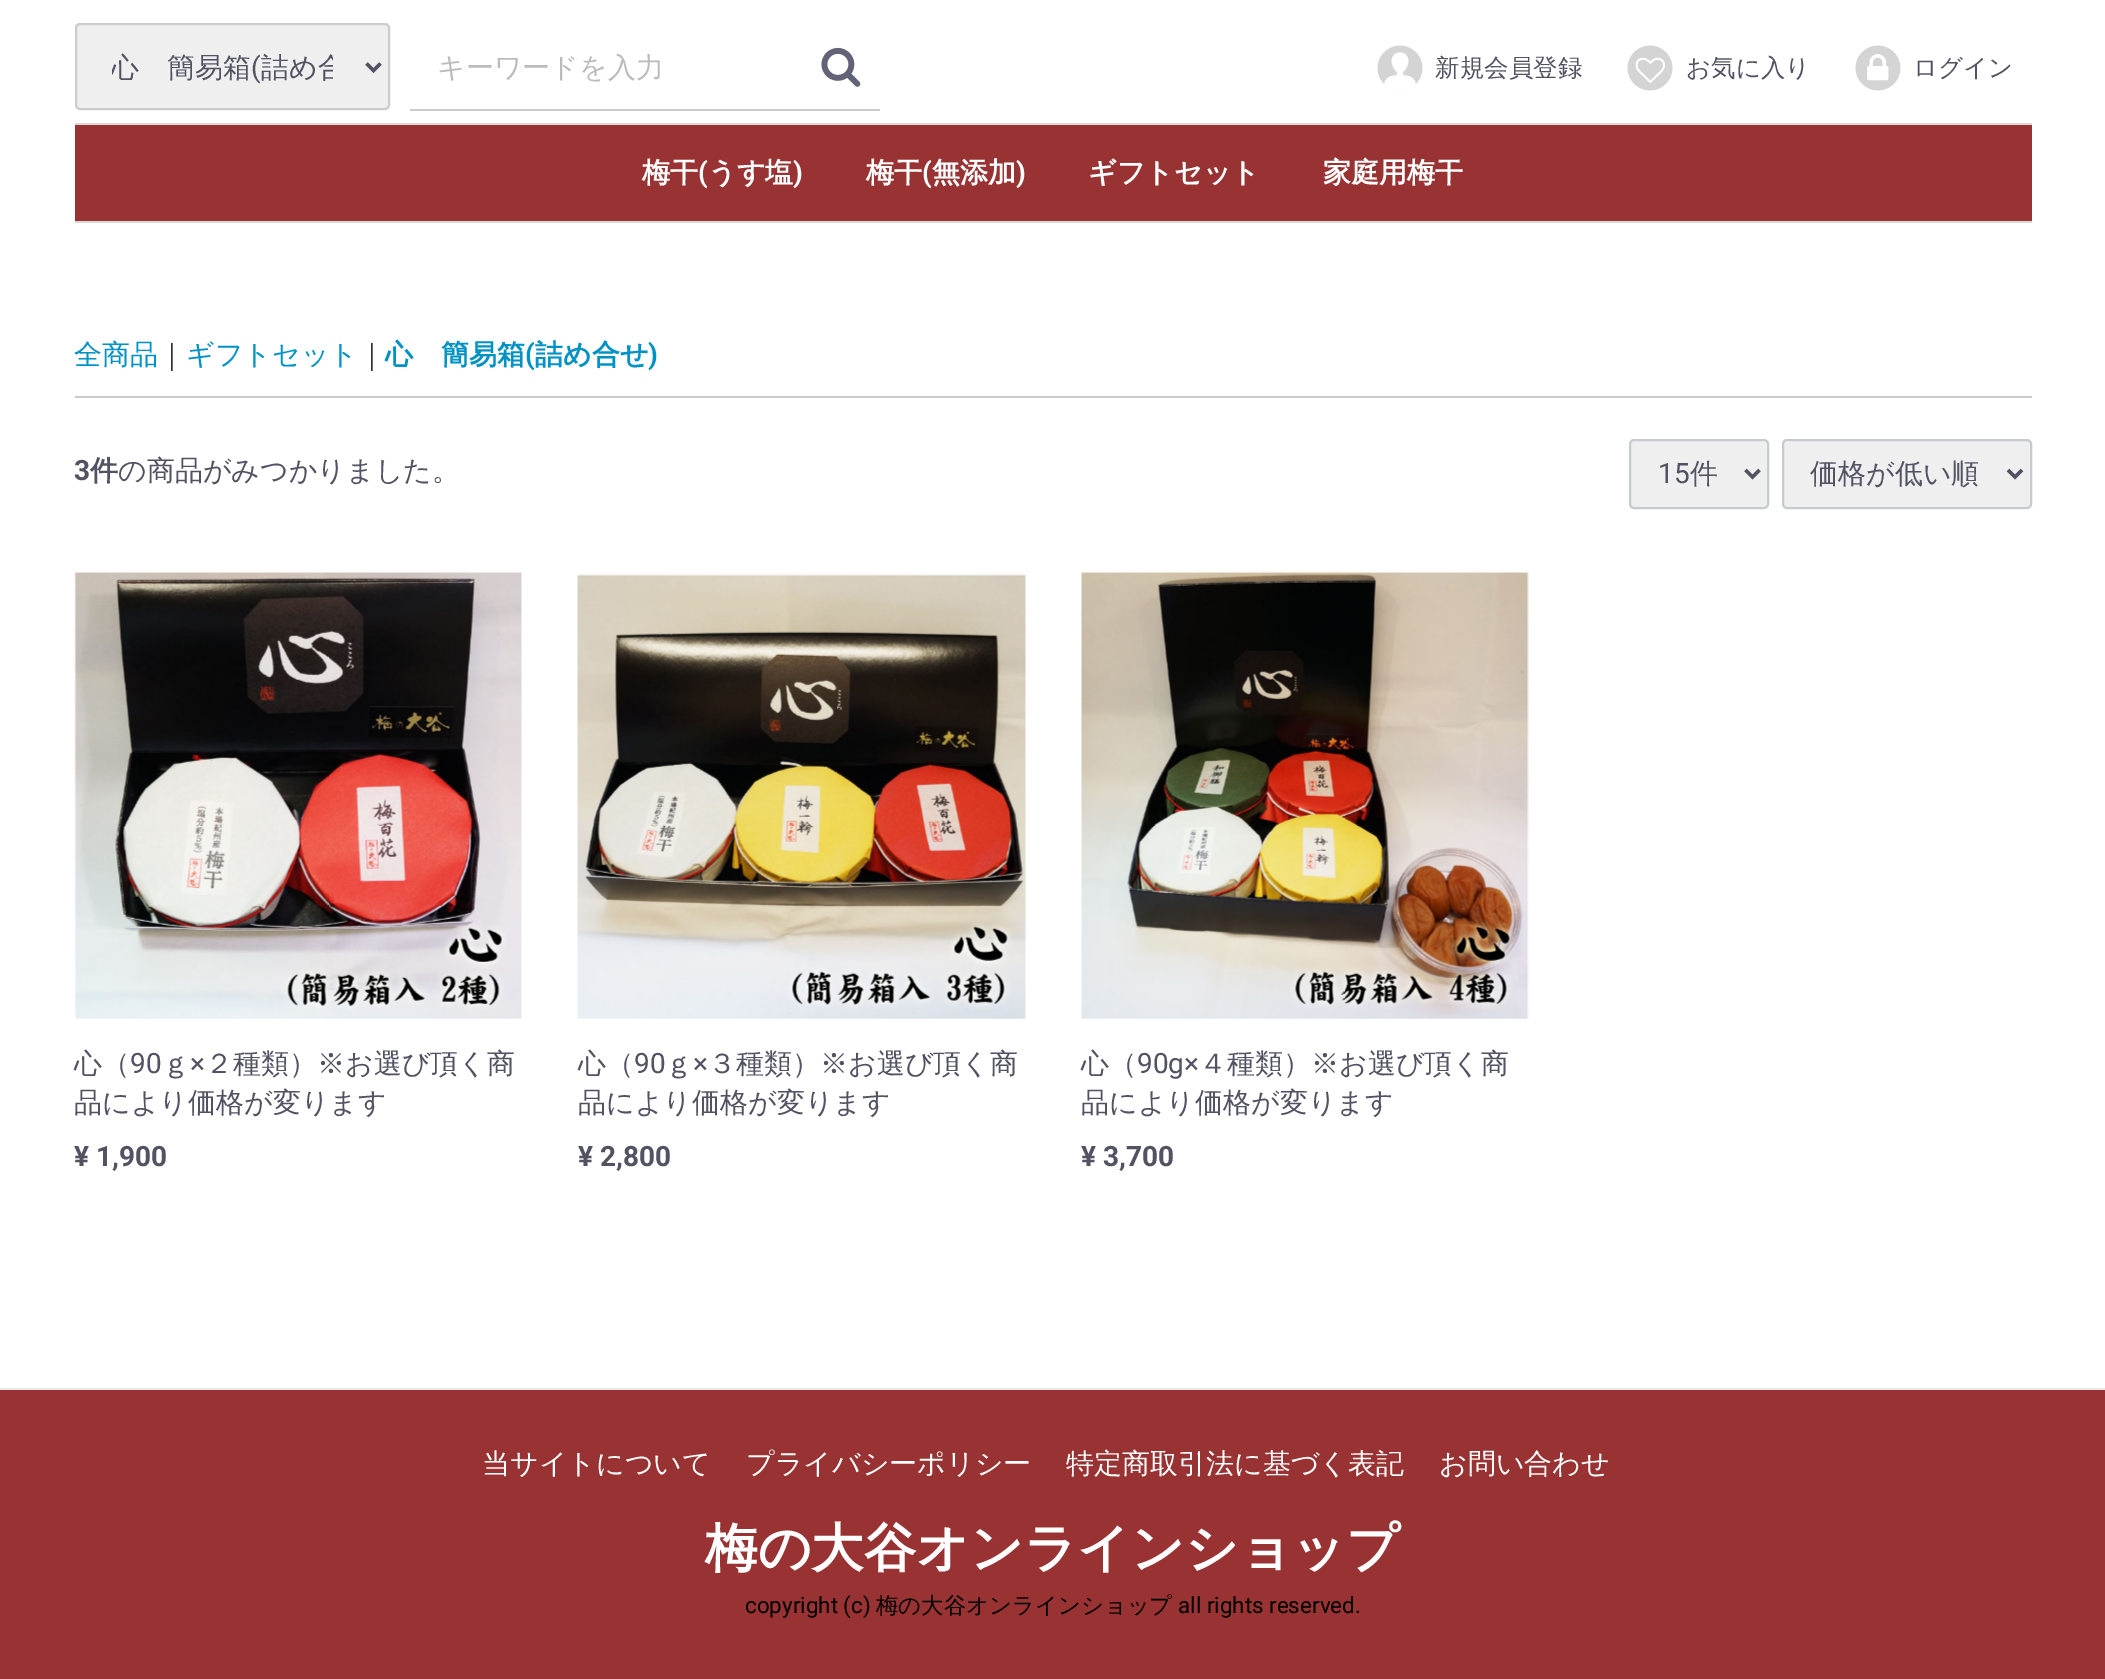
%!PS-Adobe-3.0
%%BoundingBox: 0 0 2105 1679
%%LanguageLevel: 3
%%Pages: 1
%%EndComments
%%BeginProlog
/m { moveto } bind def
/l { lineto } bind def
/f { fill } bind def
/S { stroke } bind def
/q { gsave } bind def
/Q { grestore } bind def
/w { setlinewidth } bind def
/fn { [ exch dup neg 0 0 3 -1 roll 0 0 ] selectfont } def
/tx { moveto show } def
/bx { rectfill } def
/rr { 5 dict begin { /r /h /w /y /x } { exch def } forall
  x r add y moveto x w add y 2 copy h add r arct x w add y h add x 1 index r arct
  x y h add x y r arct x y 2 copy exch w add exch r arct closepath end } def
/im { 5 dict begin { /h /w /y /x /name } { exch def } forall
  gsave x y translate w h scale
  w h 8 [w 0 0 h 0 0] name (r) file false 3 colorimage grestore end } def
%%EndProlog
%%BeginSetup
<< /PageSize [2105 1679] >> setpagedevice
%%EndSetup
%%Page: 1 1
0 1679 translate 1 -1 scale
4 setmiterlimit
1 setgray
0 0 2105 1679 bx
0.937 setgray
76 24 313 85 4 rr q f Q
0.8 setgray
2 w
S
0.322 0.322 0.388 setrgbcolor
3.5 w
366.5 63.5 m 373.5 70.5 l 380.5 63.5 l S
q
112 49 221 37 rectclip
/WenQuanYiZenHei-Medium 28 fn
(心　簡易箱) 111 77 tx
Q
/Roboto-Regular 28 fn
(\() 251 77 tx
q
112 49 221 37 rectclip
/WenQuanYiZenHei-Medium 28 fn
(詰め合) 261 77 tx
Q
0.8 setgray
410 109 470 2 bx
/WenQuanYiZenHei-Medium 28 fn
0.733 setgray
(キーワードを入力) 437 77 tx
(image0.raw) 821 47 40 40 im
(image1.raw) 1377 45 46 46 im
/WenQuanYiZenHei-Medium 24.5 fn
0.322 0.322 0.388 setrgbcolor
(新規会員登録) 1435 76 tx
(image2.raw) 1627 45 46 46 im
(お気に入り) 1686 76 tx
(image3.raw) 1855 45 46 46 im
(ログイン) 1913 76 tx
0.6 0.2 0.2 setrgbcolor
75 125 1957 96 bx
0.851 setgray
75 123 1957 2 bx
75 221 1957 2 bx
/WenQuanYiZenHei-Bold 28 fn
1 setgray
(梅干) 642 182 tx
/Roboto-Bold 28 fn
(\() 698 182 tx
/WenQuanYiZenHei-Bold 28 fn
(うす塩) 708 182 tx
/Roboto-Bold 28 fn
(\)) 793 182 tx
/WenQuanYiZenHei-Bold 28 fn
(梅干) 866 182 tx
/Roboto-Bold 28 fn
(\() 922 182 tx
/WenQuanYiZenHei-Bold 28 fn
(無添加) 932 182 tx
/Roboto-Bold 28 fn
(\)) 1016 182 tx
/WenQuanYiZenHei-Bold 28 fn
(ギフトセット) 1088 182 tx
(家庭用梅干) 1323 182 tx
0.8 setgray
75 396 1957 2 bx
/WenQuanYiZenHei-Medium 28 fn
0 0.573 0.769 setrgbcolor
(全商品) 74 364 tx
0.2 setgray
(｜) 158 364 tx
0 0.573 0.769 setrgbcolor
(ギフトセット) 186 364 tx
0.2 setgray
(｜) 358 364 tx
/WenQuanYiZenHei-Bold 28 fn
0 0.573 0.769 setrgbcolor
(心　簡易箱) 385 364 tx
/Roboto-Bold 28 fn
(\() 525 364 tx
/WenQuanYiZenHei-Bold 28 fn
(詰め合せ) 535 364 tx
/Roboto-Bold 28 fn
(\)) 648 364 tx
0.322 0.322 0.388 setrgbcolor
(3) 74 480 tx
/WenQuanYiZenHei-Bold 28 fn
(件) 90 480 tx
/WenQuanYiZenHei-Medium 28 fn
(の商品がみつかりました。) 118 480 tx
0.937 setgray
1630 440 138 68 4 rr q f Q
0.769 0.8 0.808 setrgbcolor
2 w
S
0.322 0.322 0.388 setrgbcolor
3.5 w
1745.5 470 m 1752.5 477 l 1759.5 470 l S
/Roboto-Regular 28 fn
(15) 1658 483 tx
/WenQuanYiZenHei-Medium 28 fn
(件) 1690 483 tx
0.937 setgray
1783 440 248 68 4 rr q f Q
0.769 0.8 0.808 setrgbcolor
2 w
S
0.322 0.322 0.388 setrgbcolor
3.5 w
2008 470 m 2015 477 l 2022 470 l S
(価格が低い順) 1810 483 tx
(image4.raw) 74 571 448 448 im
(心（) 74 1073 tx
/Roboto-Regular 28 fn
(90) 130 1073 tx
/WenQuanYiZenHei-Medium 28 fn
(ｇ) 162 1073 tx
/Roboto-Regular 28 fn
(×) 190 1073 tx
/WenQuanYiZenHei-Medium 28 fn
(２種類）※お選び頂く商) 205 1073 tx
(品により価格が変ります) 74 1112 tx
/Roboto-Bold 28 fn
(¥ 1,900) 74 1166 tx
(image5.raw) 577 573 449 446 im
/WenQuanYiZenHei-Medium 28 fn
(心（) 578 1073 tx
/Roboto-Regular 28 fn
(90) 634 1073 tx
/WenQuanYiZenHei-Medium 28 fn
(ｇ) 665 1073 tx
/Roboto-Regular 28 fn
(×) 693 1073 tx
/WenQuanYiZenHei-Medium 28 fn
(３種類）※お選び頂く商) 708 1073 tx
(品により価格が変ります) 578 1112 tx
/Roboto-Bold 28 fn
(¥ 2,800) 578 1166 tx
(image6.raw) 1081 571 448 448 im
/WenQuanYiZenHei-Medium 28 fn
(心（) 1081 1073 tx
/Roboto-Regular 28 fn
(90g×) 1137 1073 tx
/WenQuanYiZenHei-Medium 28 fn
(４種類）※お選び頂く商) 1199 1073 tx
(品により価格が変ります) 1081 1112 tx
/Roboto-Bold 28 fn
(¥ 3,700) 1081 1166 tx
0.6 0.2 0.2 setrgbcolor
0 1390 2105 289 bx
0.91 setgray
0 1388 2105 2 bx
/WenQuanYiZenHei-Medium 28 fn
1 setgray
(当サイトについて) 482 1473 tx
(プライバシーポリシー) 746 1473 tx
(特定商取引法に基づく表記) 1066 1473 tx
(お問い合わせ) 1439 1473 tx
/WenQuanYiZenHei-Bold 52.5 fn
(梅の大谷オンラインショップ) 705 1566 tx
/Roboto-Regular 22.4 fn
0 setgray
(copyright \(c\)) 745 1613 tx
/WenQuanYiZenHei-Medium 22.4 fn
(梅の大谷オンラインショップ) 876 1613 tx
/Roboto-Regular 22.4 fn
(all rights reserved.) 1178 1613 tx
showpage
%%EOF
